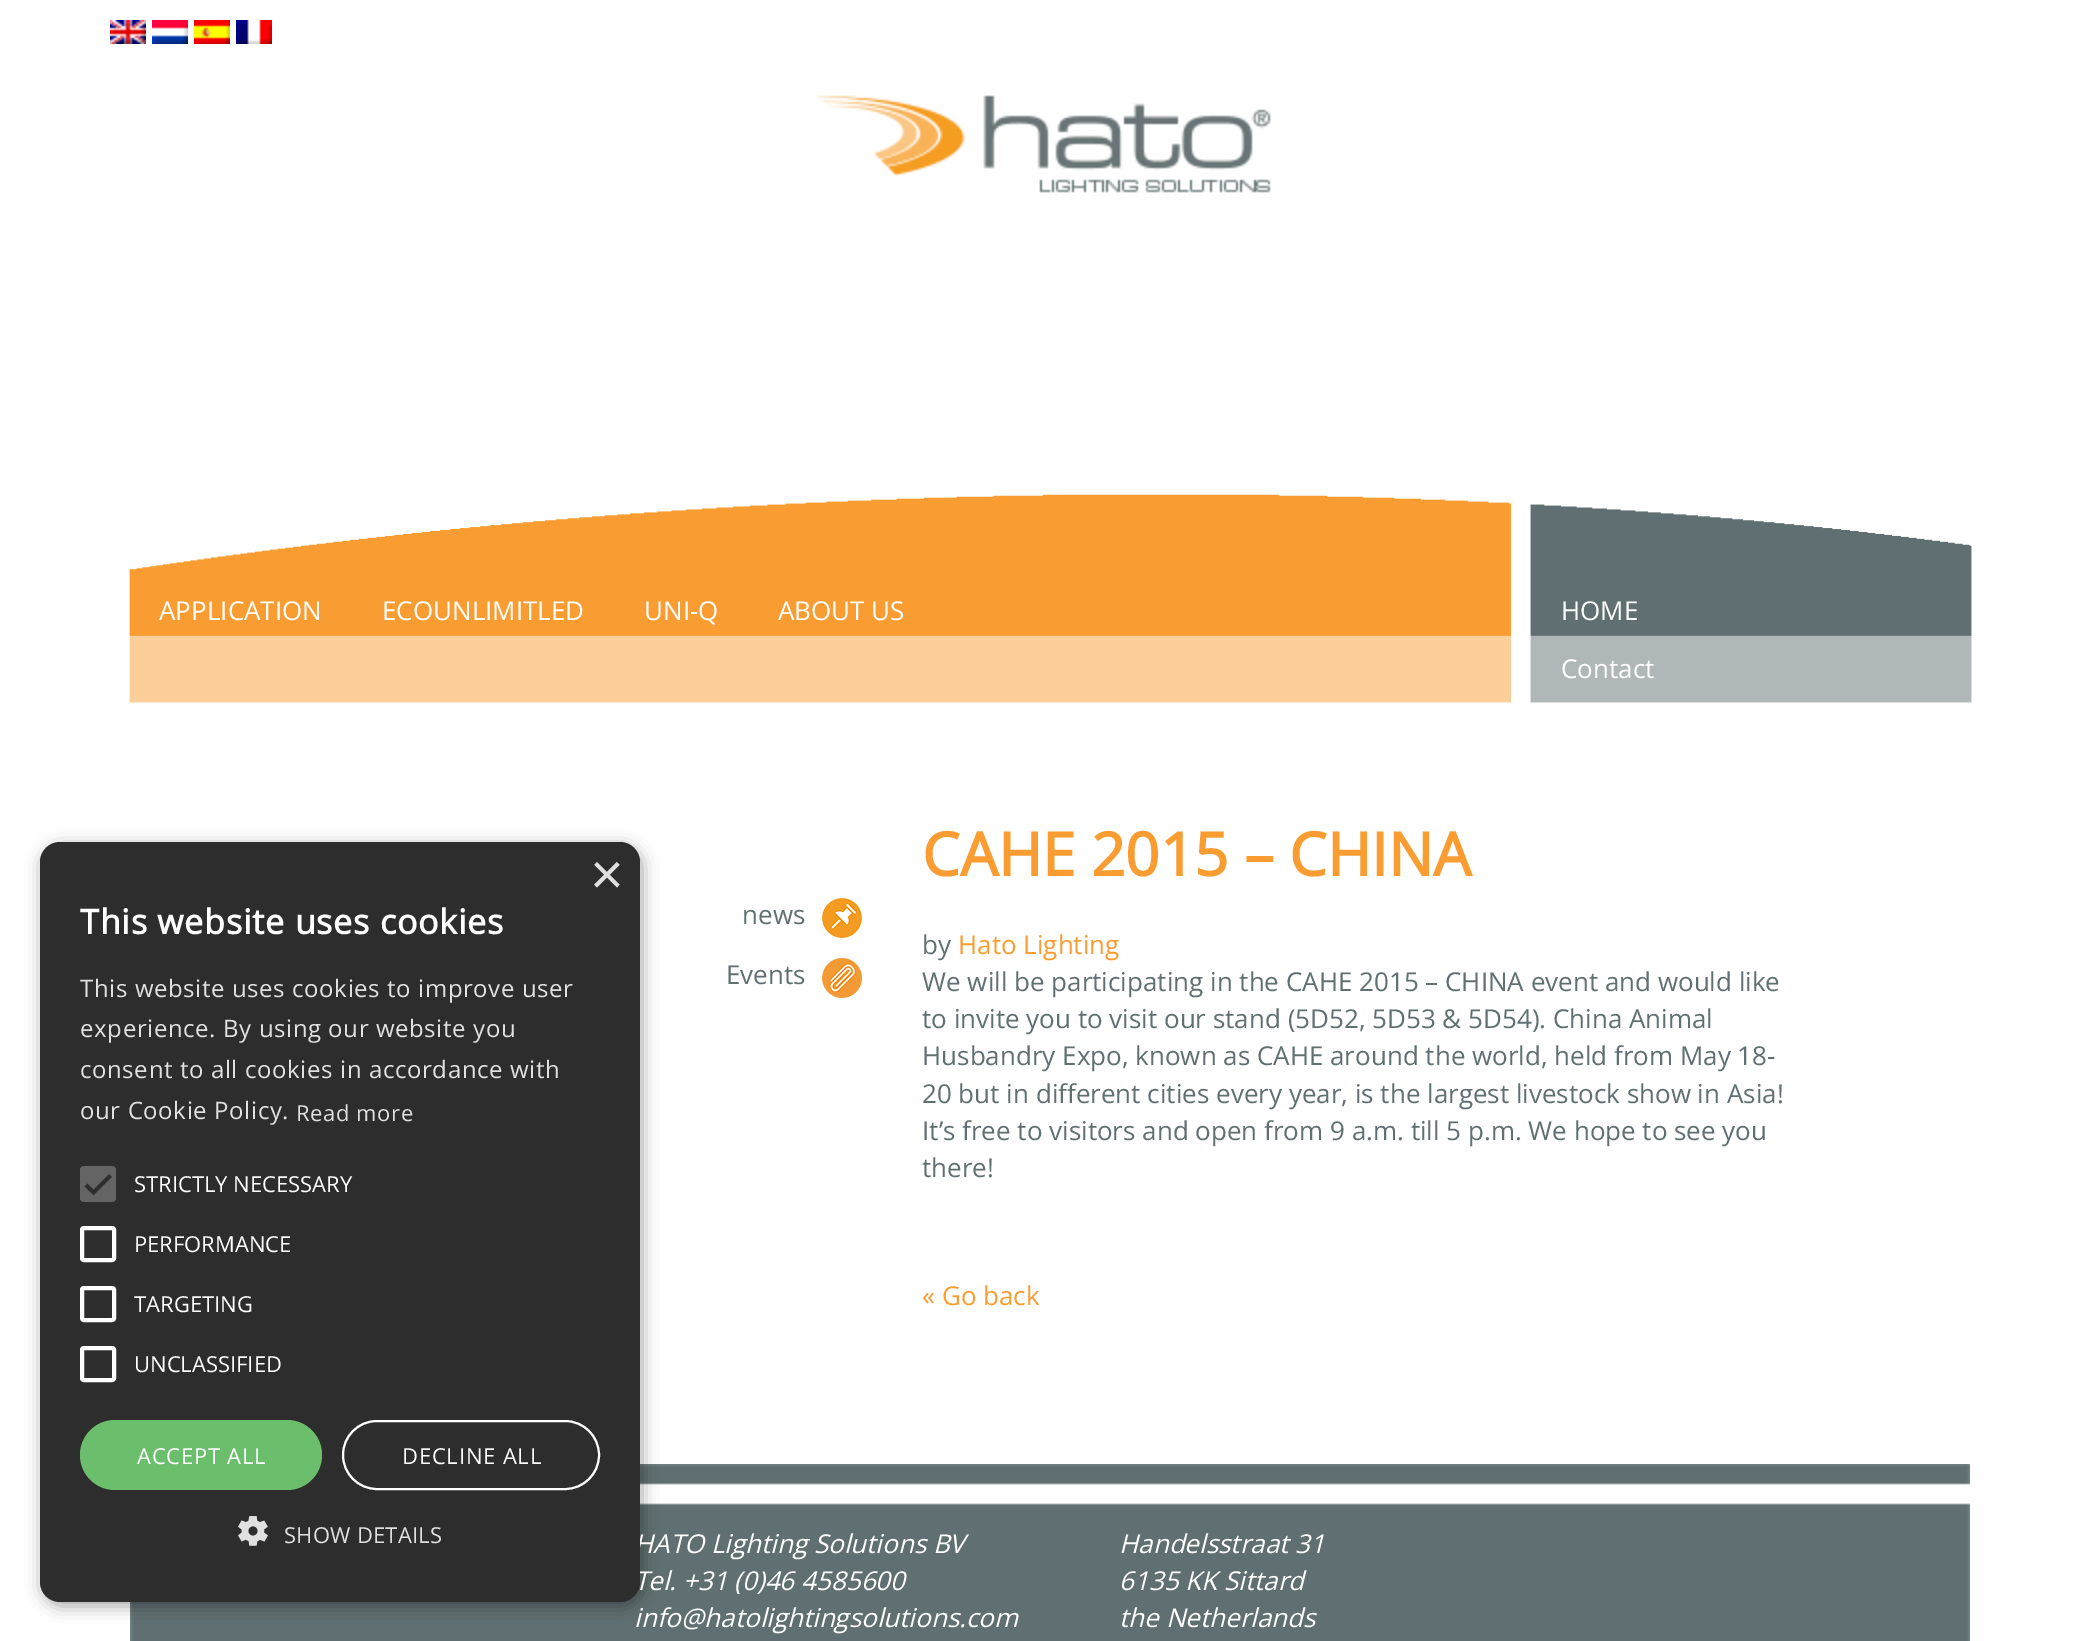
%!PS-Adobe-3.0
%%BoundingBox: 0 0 2097 1641
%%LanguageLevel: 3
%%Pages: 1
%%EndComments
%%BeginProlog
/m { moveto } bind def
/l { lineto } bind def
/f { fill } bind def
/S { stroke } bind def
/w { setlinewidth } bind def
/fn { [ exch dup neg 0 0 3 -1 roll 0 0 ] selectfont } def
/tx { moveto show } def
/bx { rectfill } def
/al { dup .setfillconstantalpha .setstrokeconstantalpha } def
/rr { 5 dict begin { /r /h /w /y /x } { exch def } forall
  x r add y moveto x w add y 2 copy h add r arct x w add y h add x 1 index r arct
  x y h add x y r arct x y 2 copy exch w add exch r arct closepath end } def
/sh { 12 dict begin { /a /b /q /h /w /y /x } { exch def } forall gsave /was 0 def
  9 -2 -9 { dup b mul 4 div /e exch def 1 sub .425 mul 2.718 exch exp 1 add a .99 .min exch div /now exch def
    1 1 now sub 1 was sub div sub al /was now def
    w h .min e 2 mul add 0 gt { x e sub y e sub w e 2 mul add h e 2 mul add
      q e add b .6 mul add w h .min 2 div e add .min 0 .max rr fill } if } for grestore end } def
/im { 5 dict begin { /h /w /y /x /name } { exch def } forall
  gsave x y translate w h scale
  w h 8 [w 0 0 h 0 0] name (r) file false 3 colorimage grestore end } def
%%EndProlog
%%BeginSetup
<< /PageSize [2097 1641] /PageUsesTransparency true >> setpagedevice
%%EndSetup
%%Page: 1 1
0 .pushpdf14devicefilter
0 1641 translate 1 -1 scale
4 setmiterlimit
1 setgray
0 0 2097 1641 bx
(image0.raw) 110 20 36 24 im
(image1.raw) 152 20 36 24 im
(image2.raw) 194 20 36 24 im
(image3.raw) 236 20 36 24 im
(image4.raw) 817 95 454 98 im
(image5.raw) 129 494 1843 209 im
/OpenSans-Regular 26 fn
(APPLICATION) 159 620 tx
(ECOUNLIMITLED) 382 620 tx
(UNI-Q) 644 620 tx
(ABOUT US) 778 620 tx
(HOME) 1561 620 tx
(Contact) 1561 678 tx
(image9.raw) 130 1464 1840 177 im
0 setgray
42 846 600 760 20 8 0.35 sh
/OpenSans-Italic 26 fn
1 setgray
(HATO Lighting Solutions BV) 634 1553 tx
(Tel. +31 \(0\)46 4585600) 634 1590 tx
0.176 setgray
40 842 600 760 20 rr f
/LiberationSans-Regular 58 fn
0.878 setgray
(×) 590 894 tx
/OpenSans-Bold 34 fn
1 setgray
80 934 m 0.8 0 (This website uses cookies) ashow
/OpenSans-Regular 24 fn
0.878 setgray
80 997 m 0.6 0 (This website uses cookies to improve user) ashow
80 1037 m 0.6 0 (experience. By using our website you) ashow
80 1078 m 0.6 0 (consent to all cookies in accordance with) ashow
80 1119 m 0.6 0 (our Cookie Policy.) ashow
/OpenSans-Regular 22 fn
296 1121 m 0.6 0 (Read more) ashow
0.392 setgray
80 1166 36 36 4 rr f
0.176 setgray
3.6 w
86 1185 m 93.5 1192.5 l 110.5 1175.5 l S
1 setgray
(STRICTLY NECESSARY) 134 1192 tx
4 w
82 1228 32 32 2 rr S
(PERFORMANCE) 134 1252 tx
82 1288 32 32 2 rr S
(TARGETING) 134 1312 tx
82 1348 32 32 2 rr S
(UNCLASSIFIED) 134 1372 tx
0.42 0.745 0.42 setrgbcolor
80 1420 242 70 35 rr f
1 setgray
137 1464 m 0.8 0 (ACCEPT ALL) ashow
2 w
343 1421 256 68 34 rr S
402 1464 m 0.8 0 (DECLINE ALL) ashow
(image6.raw) 238 1516 30 30 im
0.878 setgray
284 1543 m 0.25 0 (SHOW DETAILS) ashow
/OpenSans-Regular 26 fn
0.376 0.435 0.443 setrgbcolor
(news) 742 924 tx
(image7.raw) 822 898 40 40 im
(Events) 726 984 tx
(image8.raw) 822 958 40 40 im
/OpenSans-Bold 60 fn
0.976 0.616 0.196 setrgbcolor
(CAHE 2015 – CHINA) 922 876 tx
/OpenSans-Regular 26 fn
0.376 0.435 0.443 setrgbcolor
(by) 922 954 tx
0.976 0.616 0.196 setrgbcolor
(Hato Lighting) 958 954 tx
0.376 0.435 0.443 setrgbcolor
(We will be participating in the CAHE 2015 – CHINA event and would like) 922 991 tx
(to invite you to visit our stand \(5D52, 5D53 & 5D54\). China Animal) 922 1028 tx
(Husbandry Expo, known as CAHE around the world, held from May 18-) 922 1065 tx
(20 but in different cities every year, is the largest livestock show in Asia!) 922 1103 tx
(It’s free to visitors and open from 9 a.m. till 5 p.m. We hope to see you) 922 1140 tx
(there!) 922 1177 tx
0.976 0.616 0.196 setrgbcolor
(« Go back) 922 1305 tx
/OpenSans-Italic 26 fn
1 setgray
(info@hatolightingsolutions.com) 634 1627 tx
(Handelsstraat 31) 1119 1553 tx
(6135 KK Sittard) 1119 1590 tx
(the Netherlands) 1119 1627 tx
.poppdf14devicefilter showpage
%%EOF
